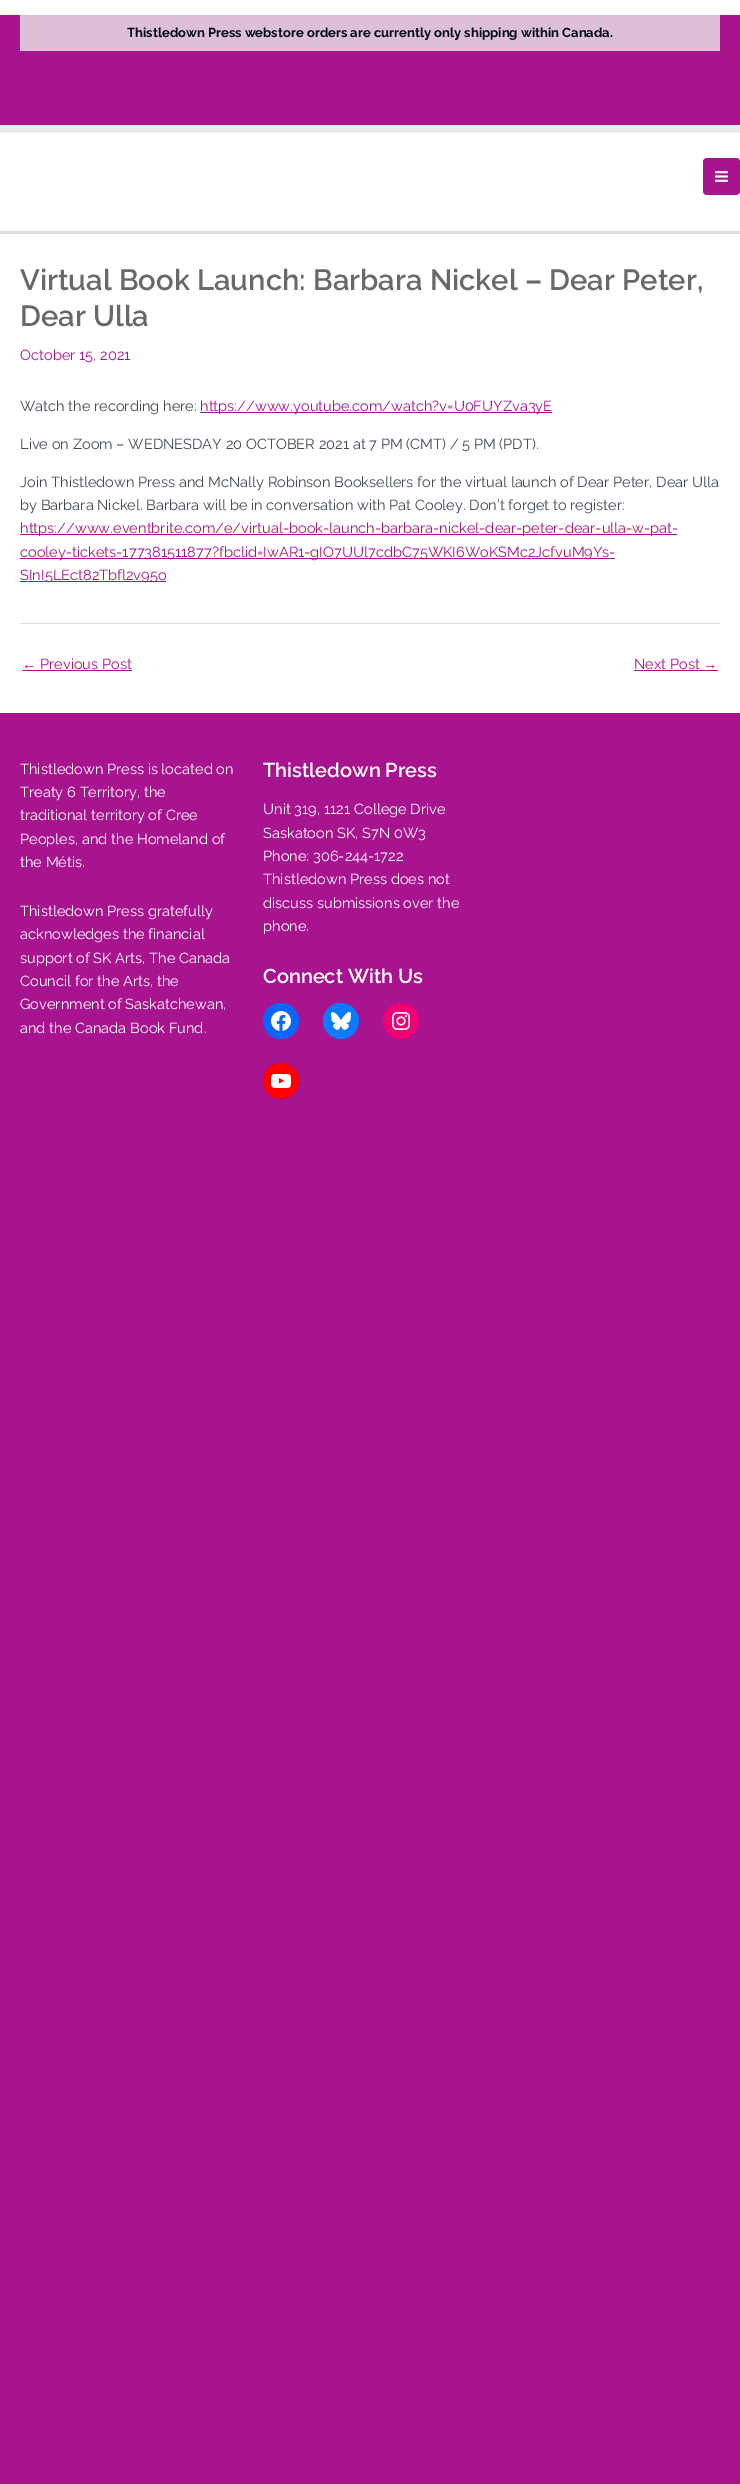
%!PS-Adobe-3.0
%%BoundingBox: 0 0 740 2484
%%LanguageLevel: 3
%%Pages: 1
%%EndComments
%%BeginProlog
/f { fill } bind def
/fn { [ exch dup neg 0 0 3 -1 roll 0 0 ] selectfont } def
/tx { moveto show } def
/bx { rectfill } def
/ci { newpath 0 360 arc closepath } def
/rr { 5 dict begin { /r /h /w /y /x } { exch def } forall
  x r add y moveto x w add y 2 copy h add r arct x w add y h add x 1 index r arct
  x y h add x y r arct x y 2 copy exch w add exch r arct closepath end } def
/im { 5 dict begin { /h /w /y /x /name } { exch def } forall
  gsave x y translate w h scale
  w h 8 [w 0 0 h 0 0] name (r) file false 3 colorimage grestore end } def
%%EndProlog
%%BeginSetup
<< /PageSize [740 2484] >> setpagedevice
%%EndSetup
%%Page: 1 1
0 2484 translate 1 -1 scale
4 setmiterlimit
1 setgray
0 0 740 2484 bx
0.659 0.078 0.561 setrgbcolor
0 15 740 110 bx
0.922 setgray
0 125 740 8 bx
0.867 0.753 0.843 setrgbcolor
20 15 700 36 bx
/Raleway-Bold 13 fn
0.004 0.043 0.075 setrgbcolor
(Thistledown Press webstore orders are currently only shipping within Canada.) 127 37 tx
0.867 setgray
0 231 740 3 bx
0.659 0.078 0.561 setrgbcolor
703 158 37 37 4 rr f
(image0.raw) 715 171 13 11 im
/Raleway-SemiBold 29.2 fn
0.412 setgray
(Virtual Book Launch: Barbara Nickel – Dear Peter,) 20 290 tx
(Dear Ulla) 20 326 tx
/Raleway-Regular 14.6 fn
0.659 0.078 0.561 setrgbcolor
(October 15, 2021) 20 360 tx
0.267 0.29 0.329 setrgbcolor
(Watch the recording here:) 20 411 tx
0.659 0.078 0.561 setrgbcolor
200 412 352 1 bx
(https://www.youtube.com/watch?v=U0FUYZva3yE) 200 411 tx
0.267 0.29 0.329 setrgbcolor
(Live on Zoom – WEDNESDAY 20 OCTOBER 2021 at 7 PM \(CMT\) / 5 PM \(PDT\).) 20 449 tx
(Join Thistledown Press and McNally Robinson Booksellers for the virtual launch of Dear Peter, Dear Ulla) 20 487 tx
(by Barbara Nickel. Barbara will be in conversation with Pat Cooley. Don’t forget to register:) 20 510 tx
0.659 0.078 0.561 setrgbcolor
20 534 657 1 bx
(https://www.eventbrite.com/e/virtual-book-launch-barbara-nickel-dear-peter-dear-ulla-w-pat-) 20 533 tx
20 558 595 1 bx
(cooley-tickets-177381511877?fbclid=IwAR1-gIO7UUl7cdbC75WKI6WoKSMc2JcfvuM9Ys-) 20 557 tx
20 581 146 1 bx
(SInI5LEct82Tbfl2v95o) 20 580 tx
0.867 setgray
20 623 700 1 bx
/LiberationSans-Regular 14.6 fn
0.659 0.078 0.561 setrgbcolor
(←) 22 669 tx
22 670 110 1 bx
/Raleway-Regular 14.6 fn
(Previous Post) 40 669 tx
(Next Post) 634 669 tx
634 670 84 1 bx
/LiberationSans-Regular 14.6 fn
(→) 703 669 tx
0 713 740 1771 bx
/Raleway-Regular 14.6 fn
1 setgray
(Thistledown Press is located on) 20 774 tx
(Treaty 6 Territory, the) 20 797 tx
(traditional territory of Cree) 20 820 tx
(Peoples, and the Homeland of) 20 844 tx
(the Métis.) 20 867 tx
(Thistledown Press gratefully) 20 916 tx
(acknowledges the financial) 20 939 tx
(support of SK Arts, The Canada) 20 963 tx
(Council for the Arts, the) 20 986 tx
(Government of Saskatchewan,) 20 1009 tx
(and the Canada Book Fund.) 20 1033 tx
/Raleway-SemiBold 20 fn
(Thistledown Press) 263 777 tx
/Raleway-Regular 14.6 fn
(Unit 319, 1121 College Drive) 263 814 tx
(Saskatoon SK, S7N 0W3) 263 838 tx
(Phone: 306-244-1722) 263 861 tx
(Thistledown Press does not) 263 884 tx
(discuss submissions over the) 263 908 tx
(phone.) 263 931 tx
/Raleway-SemiBold 20 fn
(Connect With Us) 263 983 tx
0.031 0.4 1 setrgbcolor
281 1021 18 ci f
(image1.raw) 271 1011 20 20 im
0.039 0.478 1 setrgbcolor
341 1021 18 ci f
(image2.raw) 331 1012 20 18 im
0.941 0 0.459 setrgbcolor
401 1021 18 ci f
(image3.raw) 392 1012 18 18 im
1 0 0 setrgbcolor
281 1081 18 ci f
(image4.raw) 271 1074 20 14 im
showpage
%%EOF
